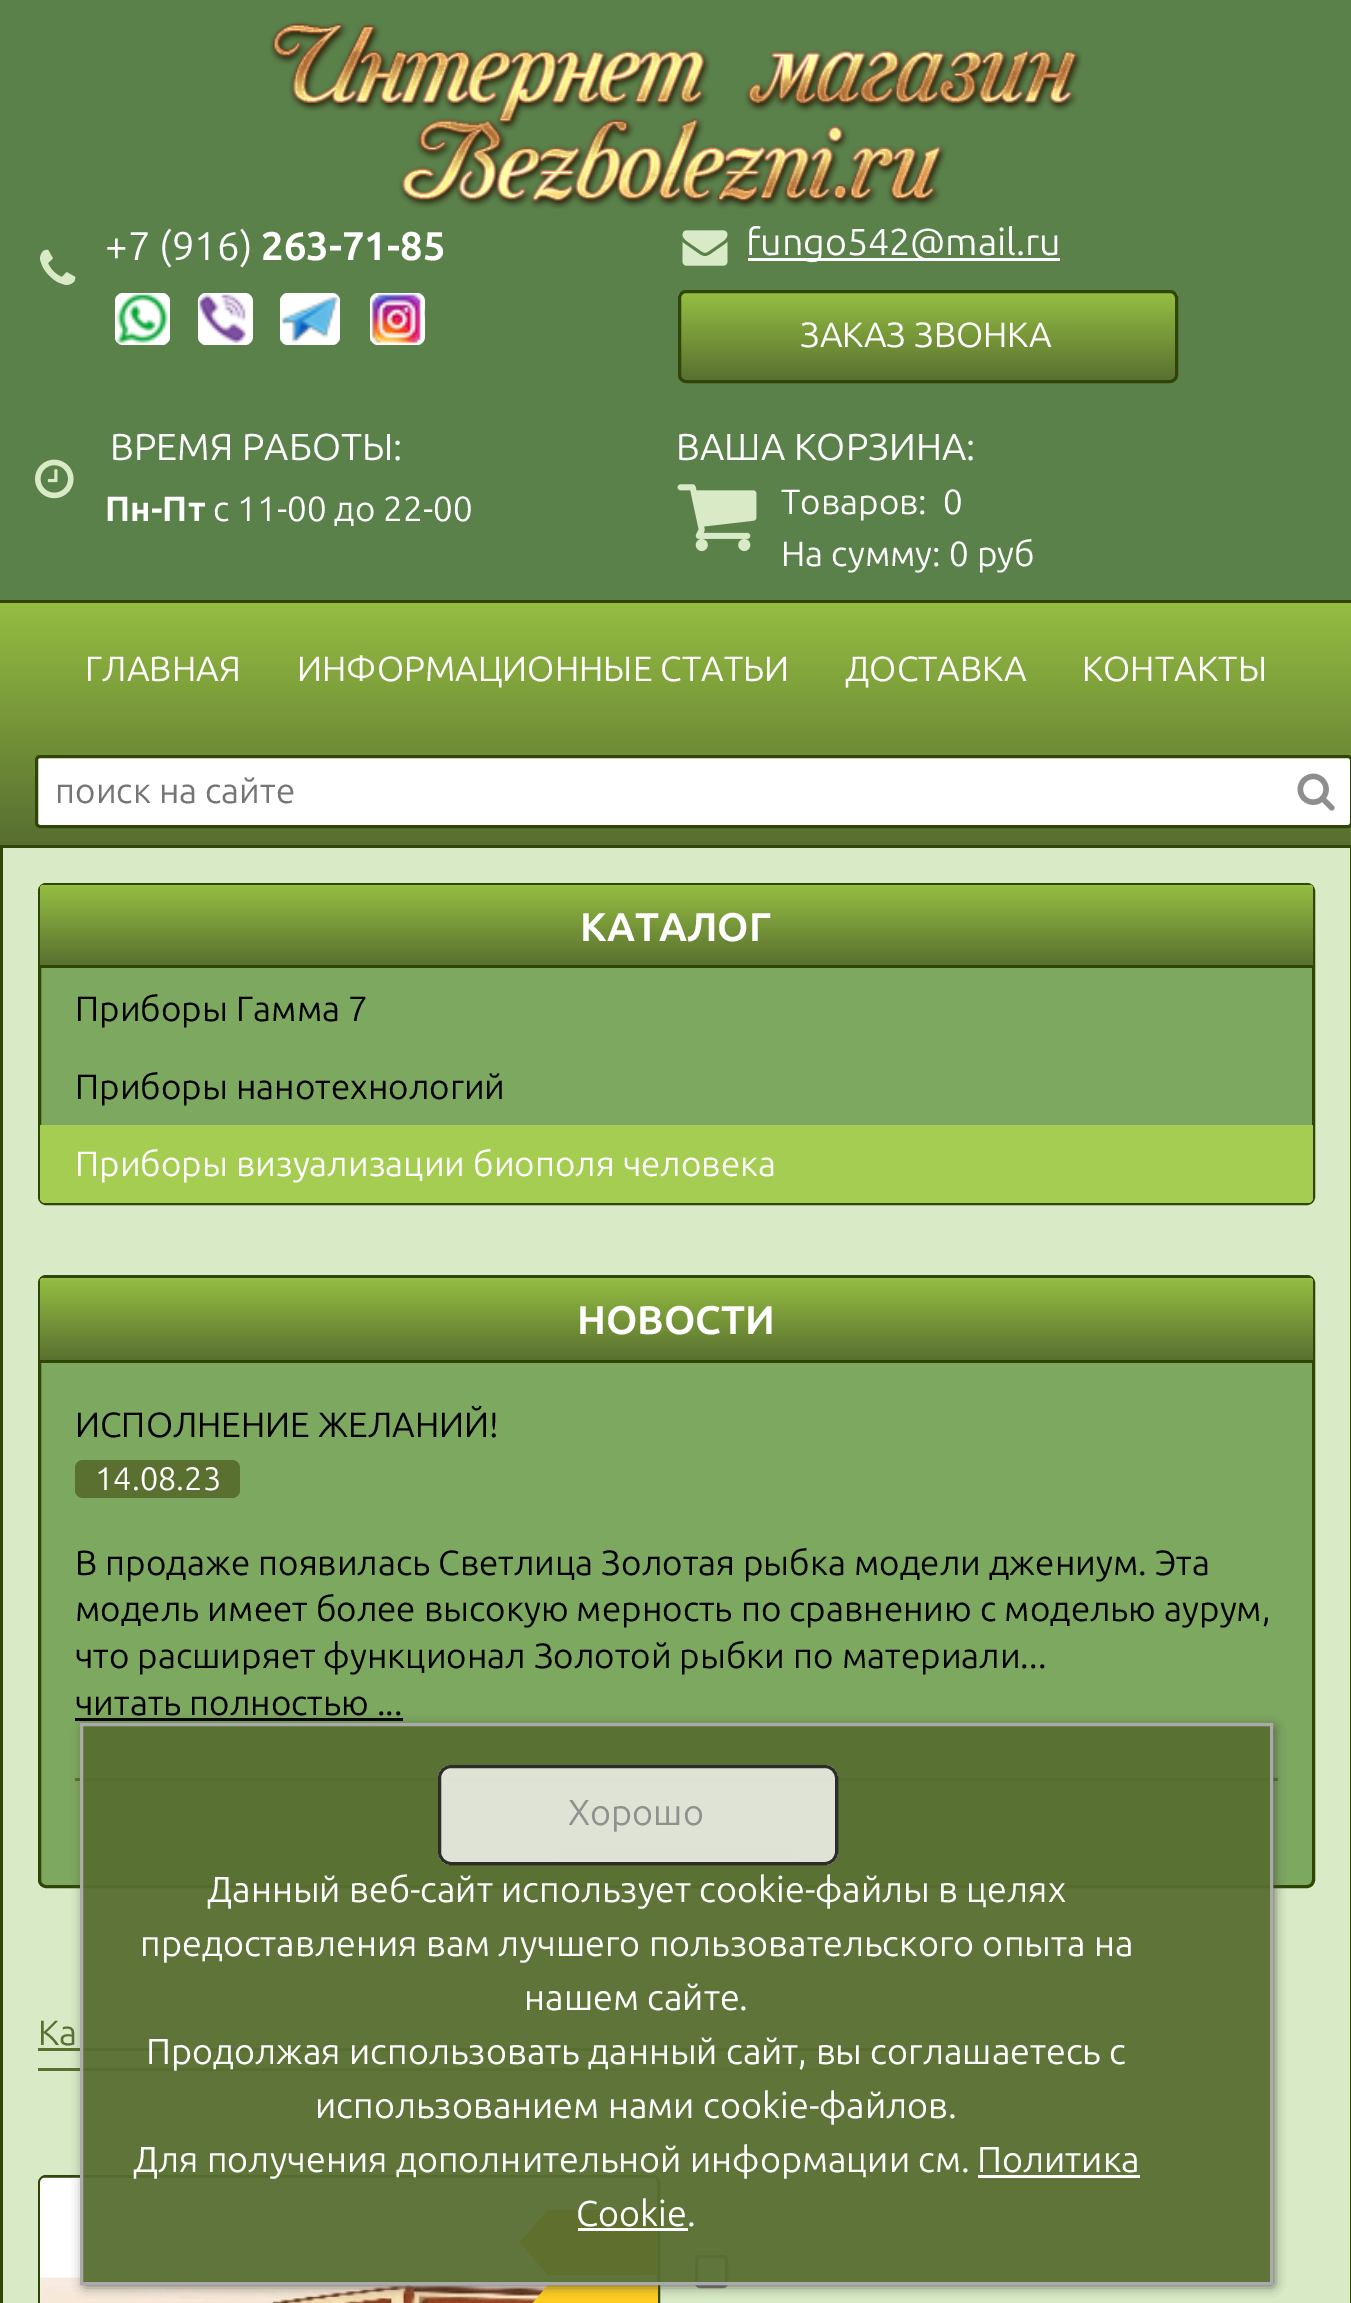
%!PS-Adobe-3.0
%%BoundingBox: 0 0 1351 2303
%%LanguageLevel: 3
%%Pages: 1
%%EndComments
%%BeginProlog
/m { moveto } bind def
/l { lineto } bind def
/c { curveto } bind def
/h { closepath } bind def
/f { fill } bind def
/S { stroke } bind def
/q { gsave } bind def
/Q { grestore } bind def
/w { setlinewidth } bind def
/fn { [ exch dup neg 0 0 3 -1 roll 0 0 ] selectfont } def
/tx { moveto show } def
/bx { rectfill } def
/al { dup .setfillconstantalpha .setstrokeconstantalpha } def
/rr { 5 dict begin { /r /h /w /y /x } { exch def } forall
  x r add y moveto x w add y 2 copy h add r arct x w add y h add x 1 index r arct
  x y h add x y r arct x y 2 copy exch w add exch r arct closepath end } def
/sh { 12 dict begin { /a /b /q /h /w /y /x } { exch def } forall gsave /was 0 def
  9 -2 -9 { dup b mul 4 div /e exch def 1 sub .425 mul 2.718 exch exp 1 add a .99 .min exch div /now exch def
    1 1 now sub 1 was sub div sub al /was now def
    w h .min e 2 mul add 0 gt { x e sub y e sub w e 2 mul add h e 2 mul add
      q e add b .6 mul add w h .min 2 div e add .min 0 .max rr fill } if } for grestore end } def
/im { 5 dict begin { /h /w /y /x /name } { exch def } forall
  gsave x y translate w h scale
  w h 8 [w 0 0 h 0 0] name (r) file false 3 colorimage grestore end } def
%%EndProlog
%%BeginSetup
<< /PageSize [1351 2303] /PageUsesTransparency true >> setpagedevice
%%EndSetup
%%Page: 1 1
0 .pushpdf14devicefilter
0 2303 translate 1 -1 scale
4 setmiterlimit
0.357 0.506 0.294 setrgbcolor
0 0 1351 2303 bx
(image0.raw) 269 21 814 188 im
(image1.raw) 40 249 36 36 im
/Ubuntu-Regular 40 fn
1 setgray
(+7 \(916\)) 105 260 tx
/Ubuntu-Bold 40 fn
(263-71-85) 261 260 tx
115 293 55 52 8 rr f
(image2.raw) 117 294 52 50 im
198 293 55 52 8 rr f
(image3.raw) 199 294 54 50 im
280 293 60 52 8 rr f
(image4.raw) 281 296 58 47 im
370 293 55 52 8 rr f
(image5.raw) 371 294 54 50 im
(image6.raw) 682 230 46 36 im
748 258 312 3 bx
/Ubuntu-Regular 37.5 fn
(fungo542@mail.ru) 746 255 tx
q
678 290 500 93 8 rr clip newpath
q 678 293 m 1178 293 l 1178 380 l 678 380 l h clip newpath
<< /ShadingType 2 /ColorSpace /DeviceRGB /Coords [928 380 928 293] /Extend [true true] /Function << /FunctionType 2 /Domain [0 1] /C0 [0.349 0.439 0.188] /C1 [0.584 0.745 0.259] /N 1 >> >> shfill Q
Q
0.184 0.275 0.027 setrgbcolor
3 w
679.5 291.5 497 90 6.5 rr S
/Ubuntu-Regular 35 fn
1 setgray
(ЗАКАЗ ЗВОНКА) 800 347 tx
/Ubuntu-Regular 37.5 fn
(ВРЕМЯ РАБОТЫ:) 110 460 tx
(image7.raw) 35 459 39 40 im
/Ubuntu-Bold 35 fn
(Пн-Пт) 105 521 tx
/Ubuntu-Regular 35 fn
(с 11-00 до 22-00) 213 521 tx
/Ubuntu-Regular 37.5 fn
(ВАША КОРЗИНА:) 676 460 tx
(image8.raw) 677 484 80 68 im
/Ubuntu-Regular 35 fn
(Товаров:) 781 514 tx
(0) 943 514 tx
(На сумму: 0 руб) 781 566 tx
q 0 603 m 1351 603 l 1351 845 l 0 845 l h clip newpath
<< /ShadingType 2 /ColorSpace /DeviceRGB /Coords [676 845 676 603] /Extend [true true] /Function << /FunctionType 2 /Domain [0 1] /C0 [0.341 0.431 0.188] /C1 [0.584 0.741 0.259] /N 1 >> >> shfill Q
0.184 0.275 0.027 setrgbcolor
0 600 1351 3 bx
0 845 1351 3 bx
1 setgray
(ГЛАВНАЯ) 85 681 tx
(ИНФОРМАЦИОННЫЕ СТАТЬИ) 297 681 tx
(ДОСТАВКА) 845 681 tx
(КОНТАКТЫ) 1082 681 tx
36.5 756.5 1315 70 3.5 rr q f Q
0.184 0.275 0.027 setrgbcolor
S
0.459 setgray
(поиск на сайте) 55 803 tx
(image9.raw) 1297 773 38 38 im
0.851 0.918 0.776 setrgbcolor
3 848 1347 1455 bx
0.184 0.275 0.027 setrgbcolor
1350 848 1 1455 bx
0 848 3 1455 bx
0.49 0.659 0.373 setrgbcolor
39.5 884.5 1274 319 6.5 rr q f Q
0.184 0.275 0.027 setrgbcolor
S
q 45 885 m 1308 885 l 1311 885 1313 887 1313 890 c 1313 965 l 40 965 l 40 890 l 40 887 42 885 45 885 c h clip newpath
<< /ShadingType 2 /ColorSpace /DeviceRGB /Coords [676 965 676 885] /Extend [true true] /Function << /FunctionType 2 /Domain [0 1] /C0 [0.349 0.439 0.188] /C1 [0.584 0.745 0.259] /N 1 >> >> shfill Q
40 965 1273 3 bx
/Ubuntu-Bold 40 fn
1 setgray
(КАТАЛОГ) 580 941 tx
/Ubuntu-Regular 35 fn
0 setgray
(Приборы Гамма 7) 75 1021 tx
(Приборы нанотехнологий) 75 1099 tx
0.643 0.804 0.318 setrgbcolor
40 1125 m 1313 1125 l 1313 1198 l 1313 1201 1311 1203 1308 1203 c 45 1203 l 42 1203 40 1201 40 1198 c h f
1 setgray
(Приборы визуализации биополя человека) 75 1176 tx
0.49 0.659 0.373 setrgbcolor
39.5 1276.5 1274 610 6.5 rr q f Q
0.184 0.275 0.027 setrgbcolor
S
q 45 1278 m 1308 1278 l 1311 1278 1313 1280 1313 1283 c 1313 1360 l 40 1360 l 40 1283 l 40 1280 42 1278 45 1278 c h clip newpath
<< /ShadingType 2 /ColorSpace /DeviceRGB /Coords [676 1360 676 1278] /Extend [true true] /Function << /FunctionType 2 /Domain [0 1] /C0 [0.349 0.439 0.188] /C1 [0.584 0.745 0.259] /N 1 >> >> shfill Q
40 1360 1273 3 bx
/Ubuntu-Bold 40 fn
1 setgray
(НОВОСТИ) 577 1334 tx
0.349 0.439 0.188 setrgbcolor
75 1778 1203 3 bx
/Ubuntu-Regular 35 fn
0 setgray
(ИСПОЛНЕНИЕ ЖЕЛАНИЙ!) 75 1437 tx
0.349 0.439 0.188 setrgbcolor
75 1460 165 38 8 rr f
/Ubuntu-Regular 32.5 fn
1 setgray
(14.08.23) 95 1490 tx
/Ubuntu-Regular 35 fn
0 setgray
(В продаже появилась Светлица Золотая рыбка модели джениум. Эта) 75 1575 tx
(модель имеет более высокую мерность по сравнению с моделью аурум,) 75 1621 tx
(что расширяет функционал Золотой рыбки по материали...) 75 1668 tx
(читать полностью ...) 75 1715 tx
75 1718 328 3 bx
558 1855 237 3 bx
0.349 0.439 0.188 setrgbcolor
(Ка) 38 2045 tx
38 2048 127 3 bx
203 2048 700 3 bx
q 38 2068 m 920 2068 l 920 2071 l 38 2071 l h clip newpath
<< /ShadingType 2 /ColorSpace /DeviceRGB /Coords [38 2069 1315 2069] /Extend [true true] /Function << /FunctionType 3 /Domain [0 1] /Functions [<< /FunctionType 2 /Domain [0 1] /C0 [0.349 0.439 0.188] /C1 [0.349 0.439 0.188] /N 1 >> << /FunctionType 2 /Domain [0 1] /C0 [0.349 0.439 0.188] /C1 [0.851 0.918 0.776] /N 1 >> << /FunctionType 2 /Domain [0 1] /C0 [0.851 0.918 0.776] /C1 [0.851 0.918 0.776] /N 1 >>] /Bounds [0.15 0.7] /Encode [0 1 0 1 0 1] >> >> shfill Q
0.184 0.275 0.027 setrgbcolor
39.5 2176.5 619 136 6.5 rr S
(image10.raw) 40 2177 618 126 im
0.945 0.565 0 setrgbcolor
548 2210 110 65 bx
548 2210 m 548 2275 l 520 2242 l h f
1 0.804 0.122 setrgbcolor
548 2285 110 18 bx
548 2285 m 548 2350 l 520 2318 l h f
1 setgray
696.5 2256.5 30 30 3.5 rr q f Q
0.463 setgray
S
q
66 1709 m 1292 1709 l 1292 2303 l 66 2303 l h 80 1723 m 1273 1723 l 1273 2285 l 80 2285 l h eoclip newpath
0.267 setgray
85 1728 1188 557 0 6 1 sh
Q
0.95 al
0.341 0.431 0.188 setrgbcolor
81.5 1724.5 m 1271.5 1724.5 l 1271.5 2283.5 l 81.5 2283.5 l h f
1 al
0.667 setgray
81.5 1724.5 m 1271.5 1724.5 l 1271.5 2283.5 l 81.5 2283.5 l h S
0.8 al
1 setgray
438 1765 400 100 13 rr f
0 setgray
439.5 1766.5 397 97 11.5 rr S
/Ubuntu-Regular 36 fn
1 al
0.565 0.569 0.557 setrgbcolor
(Хорошо) 568 1825 tx
1 setgray
(Данный веб-сайт использует cookie-файлы в целях) 207 1902 tx
(предоставления вам лучшего пользовательского опыта на) 140 1956 tx
(нашем сайте.) 524 2010 tx
(Продолжая использовать данный сайт, вы соглашаетесь с) 146 2064 tx
(использованием нами cookie-файлов.) 315 2118 tx
(Для получения дополнительной информации см.) 133 2172 tx
(Политика) 977 2172 tx
978 2175 162 3 bx
(Cookie.) 576 2226 tx
578 2228 110 3 bx
.poppdf14devicefilter showpage
%%EOF
